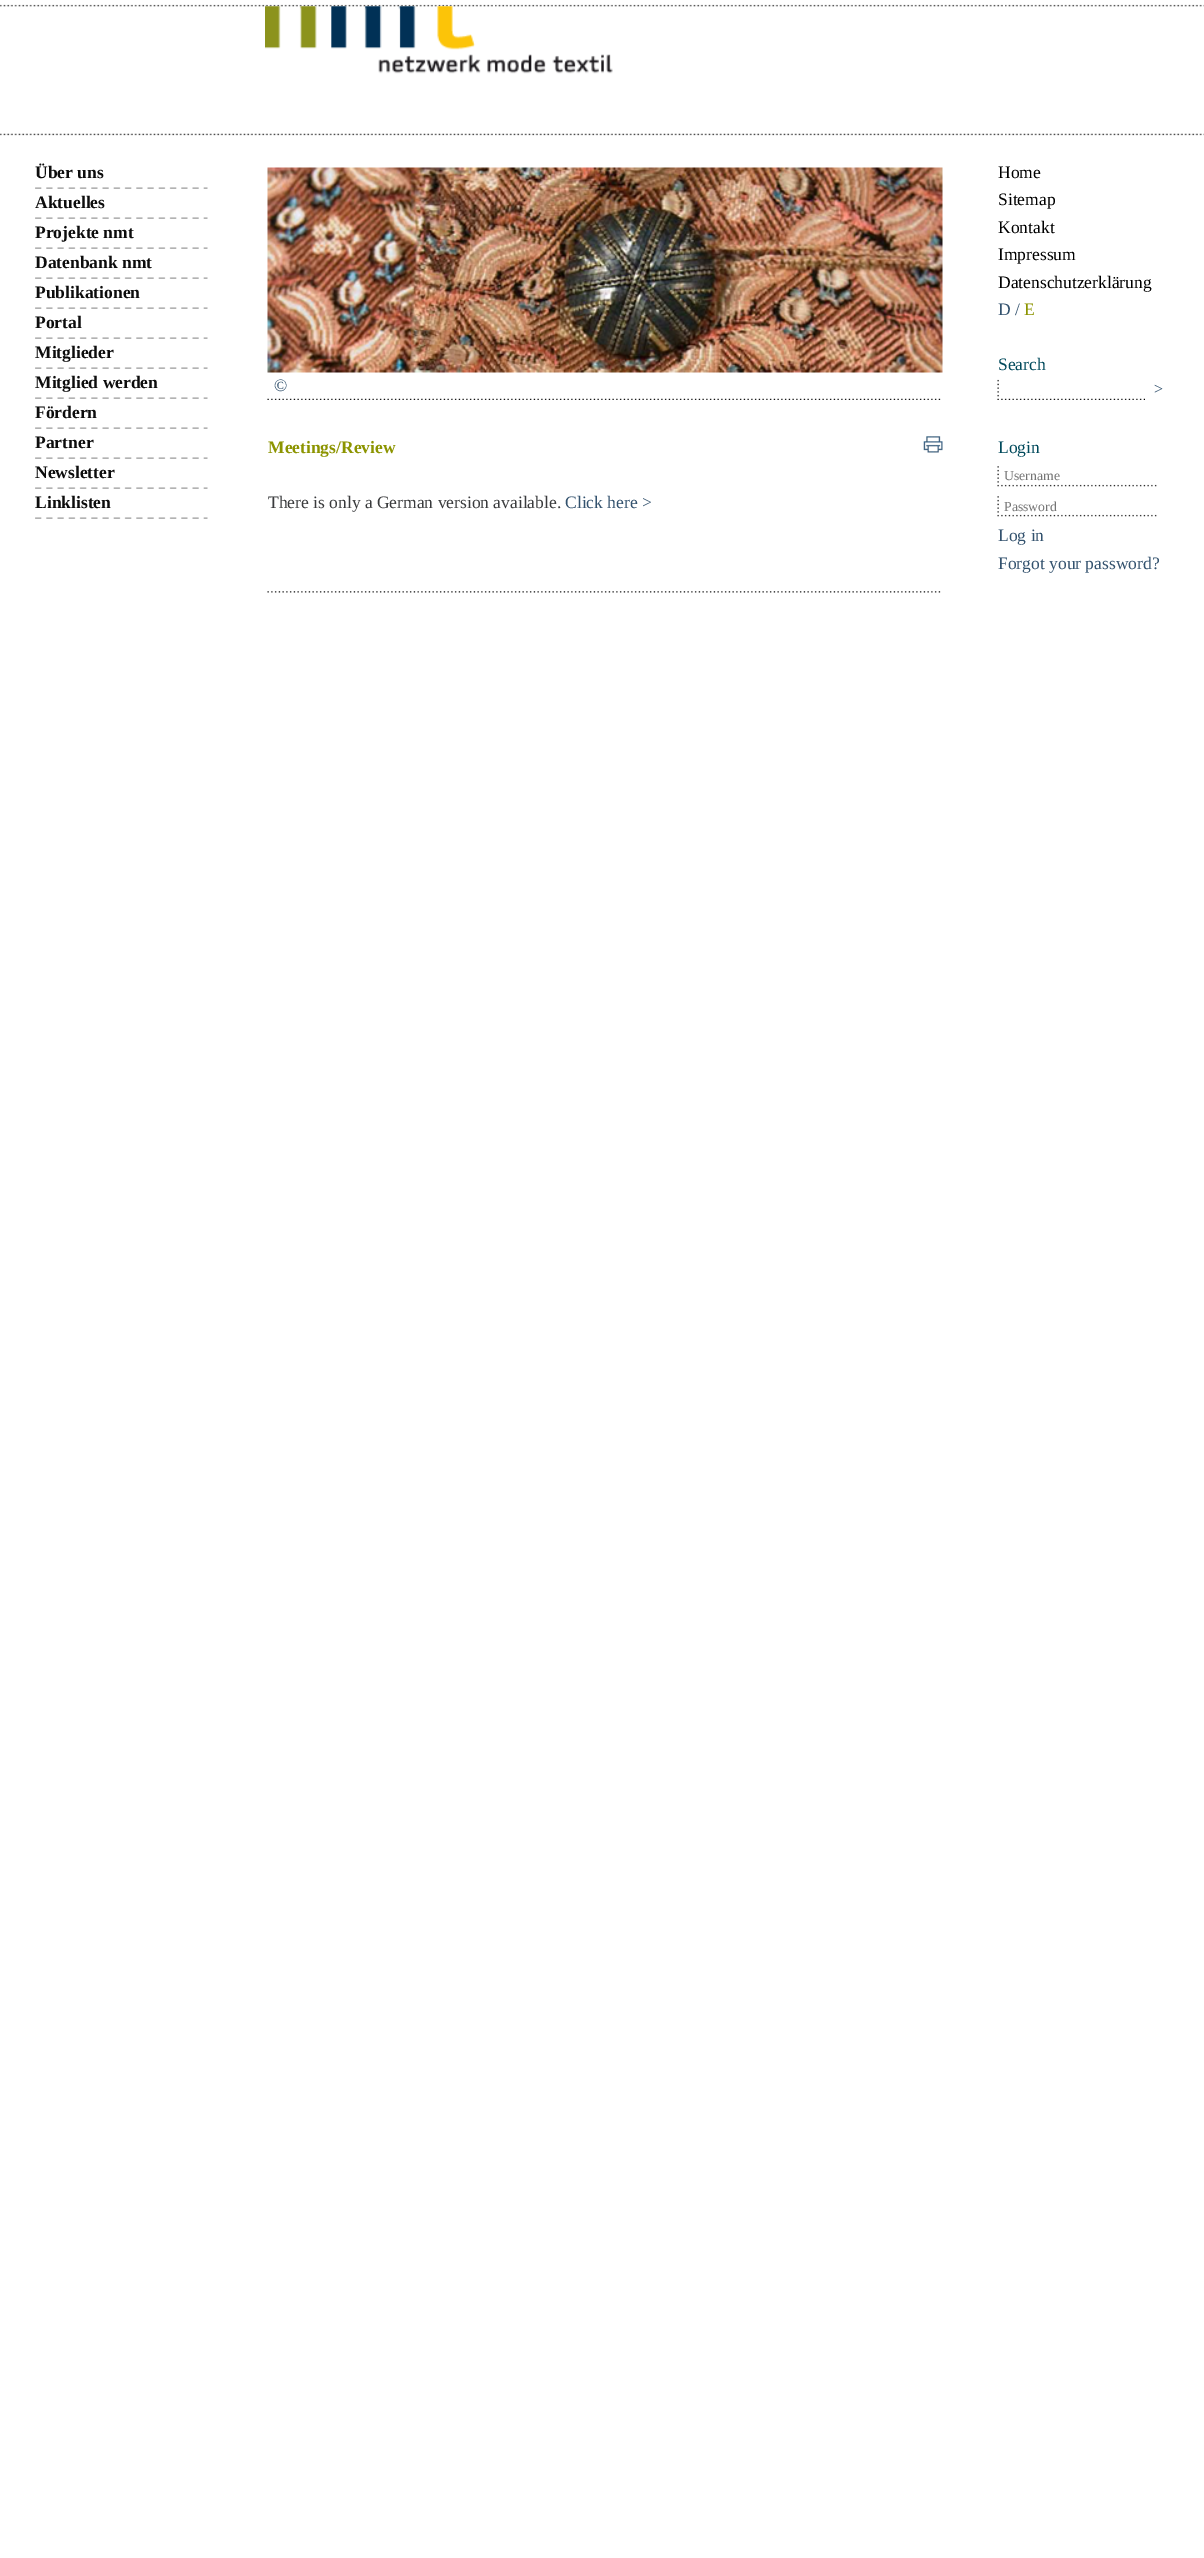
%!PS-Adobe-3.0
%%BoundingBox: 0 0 1204 2558
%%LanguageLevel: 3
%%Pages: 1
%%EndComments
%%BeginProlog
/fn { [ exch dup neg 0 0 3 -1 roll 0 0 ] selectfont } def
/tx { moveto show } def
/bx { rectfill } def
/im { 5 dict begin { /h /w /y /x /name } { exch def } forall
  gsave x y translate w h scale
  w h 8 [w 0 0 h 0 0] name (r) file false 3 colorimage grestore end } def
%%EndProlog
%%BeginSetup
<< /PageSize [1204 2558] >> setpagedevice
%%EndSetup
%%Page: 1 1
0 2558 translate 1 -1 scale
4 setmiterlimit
1 setgray
0 0 1204 2558 bx
(image0.raw) 0 4 1204 132 im
(image1.raw) 265 6 348 68 im
(image2.raw) 35 187 173 2 im
/LiberationSerif-Bold 17.5 fn
0.051 setgray
(Über uns) 35 178 tx
(image2.raw) 35 217 173 2 im
(Aktuelles) 35 208 tx
(image2.raw) 35 247 173 2 im
(Projekte nmt) 35 238 tx
(image3.raw) 35 277 173 2 im
(Datenbank nmt) 35 268 tx
(image2.raw) 35 307 173 2 im
(Publikationen) 35 298 tx
(image3.raw) 35 337 173 2 im
(Portal) 35 328 tx
(image3.raw) 35 367 173 2 im
(Mitglieder) 35 358 tx
(image3.raw) 35 397 173 2 im
(Mitglied werden) 35 388 tx
(image3.raw) 35 427 173 2 im
(Fördern) 35 418 tx
(image3.raw) 35 457 173 2 im
(Partner) 35 448 tx
(image3.raw) 35 487 173 2 im
(Newsletter) 35 478 tx
(image3.raw) 35 517 173 2 im
(Linklisten) 35 508 tx
(image4.raw) 267 591 674 2 im
(image5.raw) 267 398 674 2 im
(image6.raw) 267 167 676 206 im
/LiberationSerif-Regular 17.5 fn
0.2 0.322 0.431 setrgbcolor
(©) 274 391 tx
/LiberationSerif-Bold 17.5 fn
0.549 0.58 0 setrgbcolor
(Meetings/Review) 268 453 tx
/LiberationSerif-Regular 17.5 fn
0.227 0.231 0.239 setrgbcolor
(There is only a German version available.) 268 508 tx
0.2 0.322 0.431 setrgbcolor
(Click here >) 565 508 tx
(image7.raw) 923 436 20 17 im
0 setgray
(Home) 998 178 tx
(Sitemap) 998 205 tx
(Kontakt) 998 233 tx
(Impressum) 998 260 tx
(Datenschutzerklärung) 998 288 tx
0.2 0.322 0.431 setrgbcolor
(D /) 998 315 tx
0.549 0.58 0 setrgbcolor
(E) 1024 315 tx
0 0.286 0.357 setrgbcolor
(Search) 998 370 tx
(image8.raw) 997 379 148 21 im
/LiberationSerif-Regular 16 fn
0.2 0.322 0.431 setrgbcolor
(>) 1154 394 tx
/LiberationSerif-Regular 17.5 fn
0 0.286 0.357 setrgbcolor
(Login) 998 453 tx
(image9.raw) 997 466 160 21 im
/LiberationSerif-Regular 13.75 fn
0.459 setgray
(Username) 1004 480 tx
(image9.raw) 997 496 160 21 im
(Password) 1004 511 tx
/LiberationSerif-Regular 17.5 fn
0.2 0.322 0.431 setrgbcolor
(Log in) 998 541 tx
(Forgot your password?) 998 569 tx
showpage
%%EOF
